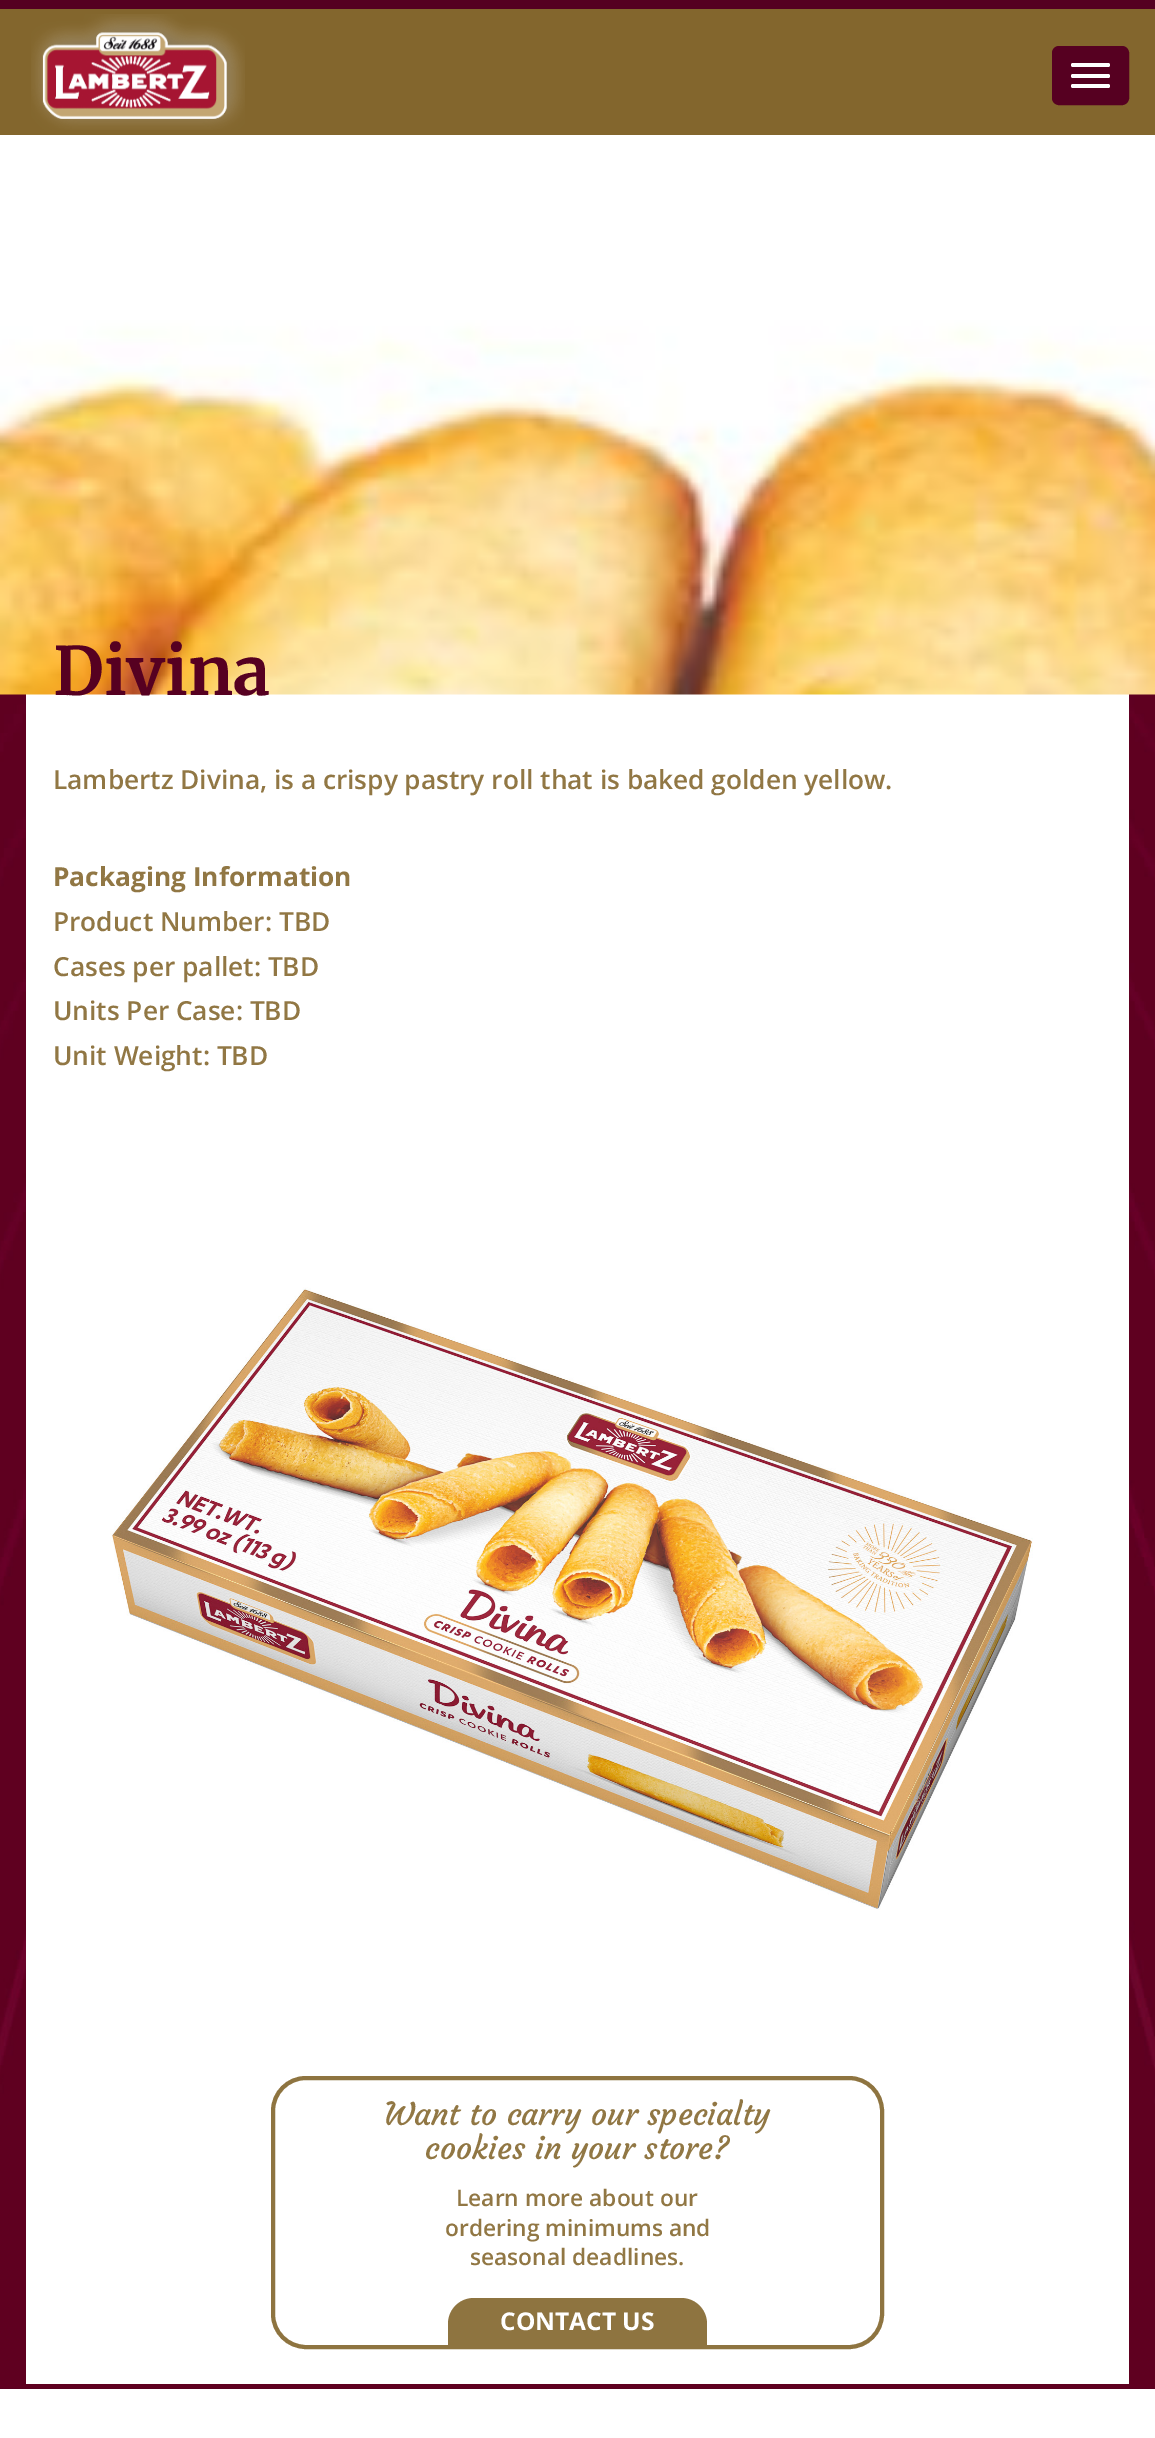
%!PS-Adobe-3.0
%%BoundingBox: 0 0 1155 2438
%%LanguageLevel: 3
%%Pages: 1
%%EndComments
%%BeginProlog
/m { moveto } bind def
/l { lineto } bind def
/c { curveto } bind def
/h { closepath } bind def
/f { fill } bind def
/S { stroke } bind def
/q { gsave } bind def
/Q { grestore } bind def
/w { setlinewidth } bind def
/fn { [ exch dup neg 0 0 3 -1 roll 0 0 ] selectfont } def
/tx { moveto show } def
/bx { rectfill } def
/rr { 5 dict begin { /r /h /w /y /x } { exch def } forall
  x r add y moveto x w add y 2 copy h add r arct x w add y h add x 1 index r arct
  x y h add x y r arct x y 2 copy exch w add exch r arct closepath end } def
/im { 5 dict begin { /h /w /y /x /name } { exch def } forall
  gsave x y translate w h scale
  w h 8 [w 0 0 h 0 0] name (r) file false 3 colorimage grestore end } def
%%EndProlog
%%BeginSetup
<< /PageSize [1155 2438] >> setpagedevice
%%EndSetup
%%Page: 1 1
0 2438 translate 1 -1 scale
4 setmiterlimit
0.333 0 0.129 setrgbcolor
0 0 1155 2438 bx
0.514 0.4 0.176 setrgbcolor
0 9 1155 126 bx
(image0.raw) 31 14 214 116 im
0.337 0 0.129 setrgbcolor
1053 47 75 57 6 rr q f Q
2 w
S
1 setgray
1071 63 39 4 2 rr f
1071 74 39 4 2 rr f
1071 84 39 4 2 rr f
(image2.raw) 0 694 1155 1695 im
26 694 1103 1690 bx
(image1.raw) 0 135 1155 560 im
/Merriweather-Bold 66.5 fn
0.337 0 0.129 setrgbcolor
(Divina) 53 695 tx
/OpenSans-SemiBold 26.25 fn
0.569 0.467 0.267 setrgbcolor
(Lambertz Divina, is a crispy pastry roll that is baked golden yellow.) 53 789 tx
/OpenSans-Bold 26.25 fn
(Packaging Information) 53 886 tx
/OpenSans-SemiBold 26.25 fn
(Product Number: TBD) 53 931 tx
(Cases per pallet: TBD) 53 976 tx
(Units Per Case: TBD) 53 1020 tx
(Unit Weight: TBD) 53 1065 tx
(image3.raw) 110 1287 923 623 im
0.557 0.455 0.251 setrgbcolor
4 w
273 2078 609 269 33 rr S
/Courgette-Regular 31.5 fn
0.569 0.467 0.267 setrgbcolor
(Want to carry our specialty) 384 2125 tx
(cookies in your store?) 425 2159 tx
/OpenSans-SemiBold 22.75 fn
(Learn more about our) 456 2206 tx
(ordering minimums and) 445 2236 tx
(seasonal deadlines.) 470 2265 tx
0.557 0.455 0.251 setrgbcolor
474 2298 m 681 2298 l 695.5 2298 707 2309.5 707 2324 c 707 2345 l 448 2345 l 448 2324 l 448 2309.5 459.5 2298 474 2298 c h f
/OpenSans-Bold 24.5 fn
1 setgray
(CONTACT US) 500 2330 tx
0 2389 1155 49 bx
showpage
%%EOF
